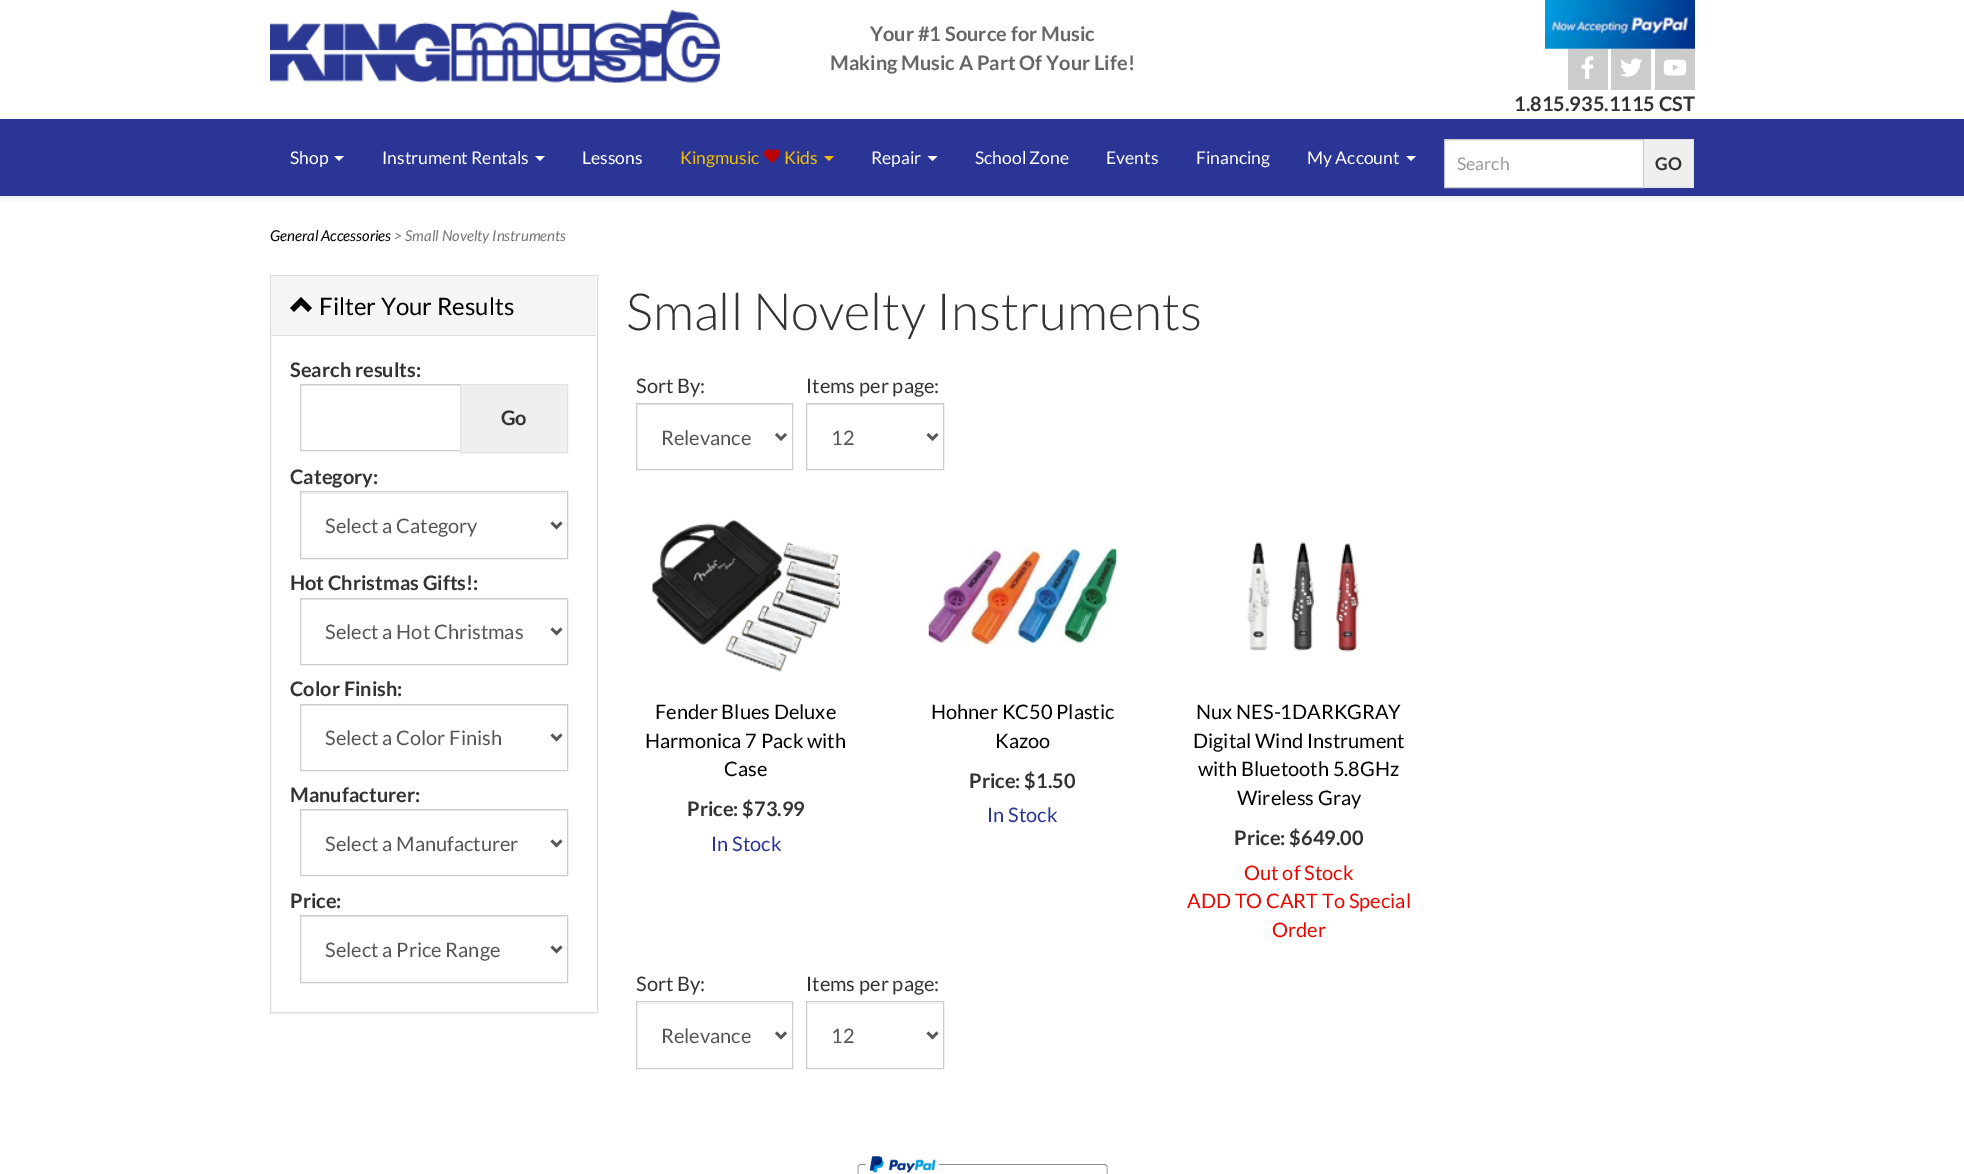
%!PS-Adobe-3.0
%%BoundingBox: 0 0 1964 1174
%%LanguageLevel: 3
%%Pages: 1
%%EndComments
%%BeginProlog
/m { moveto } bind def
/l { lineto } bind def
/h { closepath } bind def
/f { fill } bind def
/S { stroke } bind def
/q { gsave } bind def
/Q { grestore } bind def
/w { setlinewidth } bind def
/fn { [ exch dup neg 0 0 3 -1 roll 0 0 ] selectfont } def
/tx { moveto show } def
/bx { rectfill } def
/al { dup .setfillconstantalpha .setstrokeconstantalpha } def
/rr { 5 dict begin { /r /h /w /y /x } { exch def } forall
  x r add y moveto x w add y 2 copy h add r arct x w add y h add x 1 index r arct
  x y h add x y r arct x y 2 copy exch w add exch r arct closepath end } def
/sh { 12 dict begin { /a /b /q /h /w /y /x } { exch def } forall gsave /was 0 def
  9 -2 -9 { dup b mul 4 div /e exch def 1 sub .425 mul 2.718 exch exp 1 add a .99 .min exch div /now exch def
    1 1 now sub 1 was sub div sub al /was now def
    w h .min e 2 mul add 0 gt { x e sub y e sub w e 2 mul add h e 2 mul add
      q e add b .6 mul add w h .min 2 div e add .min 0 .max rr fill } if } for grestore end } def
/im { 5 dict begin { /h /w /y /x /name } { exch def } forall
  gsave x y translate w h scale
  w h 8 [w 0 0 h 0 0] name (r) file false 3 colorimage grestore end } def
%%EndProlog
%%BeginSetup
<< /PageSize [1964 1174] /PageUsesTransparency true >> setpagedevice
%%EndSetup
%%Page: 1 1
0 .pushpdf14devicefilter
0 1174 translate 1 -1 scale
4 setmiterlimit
1 setgray
0 0 1964 1174 bx
q
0 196 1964 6 rectclip
0 setgray
0 0 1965 196 0 7.5 0.1 sh
Q
(image0.raw) 270 10 450 73 im
/Lato-Bold 20 fn
0.4 setgray
(Your #1 Source for Music) 870 41 tx
(Making Music A Part Of Your Life!) 830 70 tx
(image1.raw) 1545 0 150 49 im
0.8 setgray
1568 49 40 41 bx
(image2.raw) 1581 56 13 23 im
1611 49 40 41 bx
(image3.raw) 1620 58 23 19 im
1655 49 40 41 bx
(image4.raw) 1663 59 24 17 im
0.2 setgray
(1.815.935.1115 CST) 1514 111 tx
0.169 0.208 0.588 setrgbcolor
0 119 1964 77 bx
/Lato-Regular 17.5 fn
1 setgray
(Shop) 290 164 tx
334 156 m 344 156 l 339 161 l h f
(Instrument Rentals) 382 164 tx
535 156 m 545 156 l 540 161 l h f
(Lessons) 582 164 tx
0.945 0.745 0.008 setrgbcolor
(Kingmusic) 680 164 tx
(image5.raw) 764 149 16 15 im
(Kids) 784 164 tx
824 156 m 834 156 l 829 161 l h f
1 setgray
(Repair) 871 164 tx
927.5 156 m 937.5 156 l 932.5 161 l h f
(School Zone) 975 164 tx
(Events) 1106 164 tx
(Financing) 1196 164 tx
(My Account) 1307 164 tx
1406 156 m 1416 156 l 1411 161 l h f
1445 141 198 46 bx
0.925 setgray
1445 140 198 1 bx
0.8 setgray
1444.5 139.5 199 48 rectstroke
0.6 setgray
(Search) 1457 170 tx
0.937 setgray
1644 140 49 48 bx
0.886 setgray
1644 139 50 1 bx
1693 139 1 49 bx
1644 186 50 1 bx
/Lato-Bold 17.5 fn
0.2 setgray
(GO) 1655 170 tx
/Lato-Italic 15 fn
0 setgray
(General Accessories) 270 241 tx
0.467 setgray
(> Small Novelty Instruments) 394 241 tx
0 setgray
270 276 328 738 0 0.5 0.05 sh
1 setgray
270.5 275.5 m 597.5 275.5 l 597.5 1012.5 l 270.5 1012.5 l h q f Q
0.867 setgray
S
0.961 setgray
271 276 325 59 bx
0.867 setgray
271 335 325 1 bx
0 setgray
312 308 m 308 312 l 301 305 l 294 312 l 290 308 l 301 297 l h f
/Lato-Regular 24 fn
(Filter Your Results) 319 315 tx
/Lato-Bold 20 fn
0.2 setgray
(Search results:) 290 377 tx
0.925 setgray
301 385 159 1 bx
0.8 setgray
300.5 384.5 160 66 rectstroke
0.937 setgray
460.5 384.5 m 567.5 384.5 l 567.5 452.5 l 460.5 452.5 l h q f Q
0.886 setgray
S
0.2 setgray
(Go) 501 425 tx
(Category:) 290 484 tx
0.925 setgray
301 493 265 1 bx
0.8 setgray
300.5 491.5 267 67 rectstroke
0.333 setgray
2.5 w
551.5 522.5 m 556.5 527.5 l 561.5 522.5 l S
/Lato-Regular 20 fn
(Select a Category) 325 533 tx
/Lato-Bold 20 fn
0.2 setgray
(Hot Christmas Gifts!:) 290 590 tx
0.925 setgray
301 599 265 1 bx
0.8 setgray
1 w
300.5 598.5 267 66 rectstroke
0.333 setgray
2.5 w
551.5 628.5 m 556.5 633.5 l 561.5 628.5 l S
/Lato-Regular 20 fn
(Select a Hot Christmas) 325 639 tx
/Lato-Bold 20 fn
0.2 setgray
(Color Finish:) 290 696 tx
0.925 setgray
301 705 265 1 bx
0.8 setgray
1 w
300.5 704.5 267 66 rectstroke
0.333 setgray
2.5 w
551.5 734.5 m 556.5 739.5 l 561.5 734.5 l S
/Lato-Regular 20 fn
(Select a Color Finish) 325 745 tx
/Lato-Bold 20 fn
0.2 setgray
(Manufacturer:) 290 802 tx
0.925 setgray
301 810 265 1 bx
0.8 setgray
1 w
300.5 809.5 267 66 rectstroke
0.333 setgray
2.5 w
551.5 840.5 m 556.5 845.5 l 561.5 840.5 l S
/Lato-Regular 20 fn
(Select a Manufacturer) 325 851 tx
/Lato-Bold 20 fn
0.2 setgray
(Price:) 290 908 tx
0.925 setgray
301 916 265 1 bx
0.8 setgray
1 w
300.5 915.5 267 67 rectstroke
0.333 setgray
2.5 w
551.5 946.5 m 556.5 951.5 l 561.5 946.5 l S
/Lato-Regular 20 fn
(Select a Price Range) 325 957 tx
/Lato-Light 51.25 fn
0.2 setgray
(Small Novelty Instruments) 626 330 tx
/Lato-Regular 20 fn
(Sort By:) 636 393 tx
0.925 setgray
638 404 153 1 bx
0.8 setgray
1 w
636.5 403.5 156 66 rectstroke
0.333 setgray
2.5 w
776 434 m 781 439 l 786 434 l S
(Relevance) 661 445 tx
0.2 setgray
(Items per page:) 806 393 tx
0.925 setgray
808 404 135 1 bx
0.8 setgray
1 w
806.5 403.5 137 66 rectstroke
0.333 setgray
2.5 w
927.5 434 m 932.5 439 l 937.5 434 l S
(12) 831 445 tx
(image6.raw) 652 519 188 153 im
0 setgray
(Fender Blues Deluxe) 655 719 tx
(Harmonica 7 Pack with) 645 748 tx
(Case) 724 776 tx
/Lato-Bold 20 fn
0.2 setgray
(Price: $73.99) 687 816 tx
/Lato-Regular 20 fn
0.169 0.208 0.588 setrgbcolor
(In Stock) 711 851 tx
(image7.raw) 928 547 189 99 im
0 setgray
(Hohner KC50 Plastic) 931 719 tx
(Kazoo) 995 748 tx
/Lato-Bold 20 fn
0.2 setgray
(Price: $1.50) 969 788 tx
/Lato-Regular 20 fn
0.169 0.208 0.588 setrgbcolor
(In Stock) 987 822 tx
(image8.raw) 1247 542 112 110 im
0 setgray
(Nux NES-1DARKGRAY) 1196 719 tx
(Digital Wind Instrument) 1193 748 tx
(with Bluetooth 5.8GHz) 1198 776 tx
(Wireless Gray) 1237 805 tx
/Lato-Bold 20 fn
0.2 setgray
(Price: $649.00) 1234 845 tx
/Lato-Regular 20 fn
0.898 0.027 0 setrgbcolor
(Out of Stock) 1244 880 tx
(ADD TO CART To Special) 1187 908 tx
(Order) 1272 937 tx
0.2 setgray
(Sort By:) 636 991 tx
0.925 setgray
638 1003 153 1 bx
0.8 setgray
1 w
636.5 1001.5 156 67 rectstroke
0.333 setgray
2.5 w
776 1032.5 m 781 1037.5 l 786 1032.5 l S
(Relevance) 661 1043 tx
0.2 setgray
(Items per page:) 806 991 tx
0.925 setgray
808 1003 135 1 bx
0.8 setgray
1 w
806.5 1001.5 137 67 rectstroke
0.333 setgray
2.5 w
927.5 1032.5 m 932.5 1037.5 l 937.5 1032.5 l S
(12) 831 1043 tx
(image9.raw) 857 1156 251 18 im
.poppdf14devicefilter showpage
%%EOF
